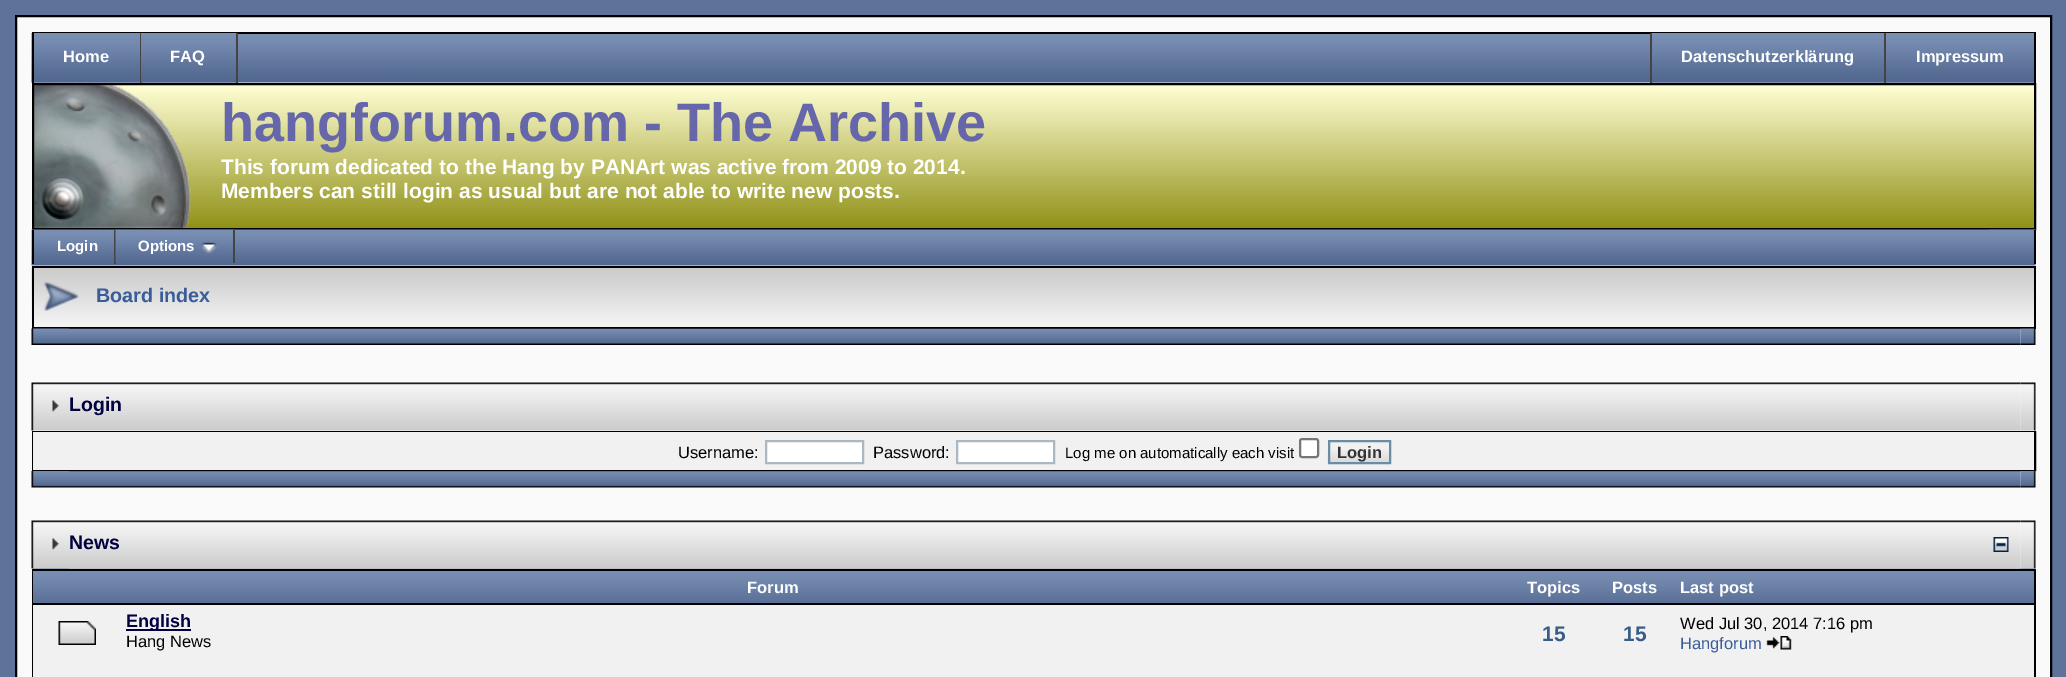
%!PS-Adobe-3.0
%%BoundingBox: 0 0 2066 677
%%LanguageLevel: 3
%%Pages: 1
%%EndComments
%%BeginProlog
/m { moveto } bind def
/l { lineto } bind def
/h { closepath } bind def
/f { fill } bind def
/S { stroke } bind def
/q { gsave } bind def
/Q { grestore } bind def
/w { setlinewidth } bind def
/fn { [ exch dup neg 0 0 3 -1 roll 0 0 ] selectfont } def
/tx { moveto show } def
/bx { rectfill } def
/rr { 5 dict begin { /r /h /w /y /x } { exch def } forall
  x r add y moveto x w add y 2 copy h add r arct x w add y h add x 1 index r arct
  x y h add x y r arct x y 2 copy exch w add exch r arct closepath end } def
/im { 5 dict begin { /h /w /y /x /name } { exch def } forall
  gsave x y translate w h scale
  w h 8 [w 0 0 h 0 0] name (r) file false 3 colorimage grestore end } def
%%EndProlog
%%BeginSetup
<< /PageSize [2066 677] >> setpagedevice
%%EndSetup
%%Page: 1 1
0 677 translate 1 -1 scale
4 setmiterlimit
0.365 0.451 0.6 setrgbcolor
0 0 2066 677 bx
0.98 setgray
16 16 m 2051 16 l 2051 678 l 16 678 l h q f Q
0 setgray
2 w
S
(image0.raw) 31 33 2003 50 im
32 32 2004 2 bx
(image1.raw) 31 33 109 50 im
0.267 setgray
140 33 2 50 bx
0 setgray
32 33 2 50 bx
/LiberationSans-Bold 16.5 fn
1 setgray
(Home) 63 62 tx
(image2.raw) 141 33 95 50 im
0.267 setgray
236 33 2 50 bx
1 setgray
(FAQ) 170 62 tx
(image3.raw) 1652 33 232 50 im
0.267 setgray
1650 33 2 50 bx
1 setgray
(Datenschutzerklärung) 1681 62 tx
(image4.raw) 1886 33 148 50 im
0 setgray
2034 33 2 50 bx
0.267 setgray
1884 33 2 50 bx
1 setgray
(Impressum) 1916 62 tx
(image5.raw) 34 85 2000 143 im
0 setgray
33 84 2002 145 rectstroke
/LiberationSans-Bold 54 fn
0.4 0.4 0.667 setrgbcolor
(hangforum.com - The Archive) 221 141 tx
/LiberationSans-Bold 21 fn
1 setgray
(This forum dedicated to the Hang by PANArt was active from 2009 to 2014.) 221 174 tx
(Members can still login as usual but are not able to write new posts.) 221 198 tx
(image6.raw) 31 229 2005 37 im
0.267 setgray
114 230 2 34 bx
0 setgray
32 230 2 34 bx
/LiberationSans-Bold 15 fn
1 setgray
(Login) 57 251 tx
(image7.raw) 115 229 119 34 im
0.267 setgray
233 230 2 33 bx
1 setgray
(Options) 138 251 tx
(image8.raw) 1989 229 47 35 im
0 setgray
2034 230 2 34 bx
(image9.raw) 31 267 56 60 im
32 266 2004 2 bx
32 327 55 2 bx
32 266 2 63 bx
(image10.raw) 43 281 36 31 im
(image11.raw) 87 268 1947 59 im
2034 266 2 63 bx
87 327 1949 2 bx
/LiberationSans-Bold 19.75 fn
0.224 0.365 0.596 setrgbcolor
(Board index) 96 302 tx
(image12.raw) 31 328 38 17 im
(image13.raw) 2020 328 16 17 im
(image14.raw) 69 328 1952 17 im
(image15.raw) 31 382 38 49 im
(image16.raw) 2020 382 16 49 im
(image17.raw) 69 382 1952 49 im
/LiberationSans-Bold 19.5 fn
0 0 0.251 setrgbcolor
(Login) 69 411 tx
0 setgray
33 432 2002 38 rectstroke
0.945 setgray
33 432 2001 38 bx
/LiberationSans-Regular 16.5 fn
0 setgray
(Username:) 678 458 tx
1 setgray
766 441 m 863 441 l 863 463 l 766 463 l h q f Q
0.663 0.722 0.761 setrgbcolor
S
0 setgray
(Password:) 873 458 tx
1 setgray
957 441 m 1054 441 l 1054 463 l 957 463 l h q f Q
0.663 0.722 0.761 setrgbcolor
S
/LiberationSans-Regular 15 fn
0 setgray
(Log me on automatically each visit) 1065 458 tx
1 setgray
1300 439 18 18 2 rr q f Q
0.463 setgray
S
(image18.raw) 1327 450 62 14 im
0.416 0.553 0.643 setrgbcolor
1329 441 61 22 rectstroke
/LiberationSans-Bold 16.5 fn
0.2 setgray
(Login) 1337 458 tx
(image19.raw) 31 471 38 17 im
(image20.raw) 2020 471 16 17 im
(image21.raw) 69 471 1952 17 im
(image15.raw) 31 520 38 49 im
(image16.raw) 2020 520 16 49 im
(image24.raw) 33 568 1479 35 im
(image25.raw) 1512 568 84 35 im
(image26.raw) 1596 568 78 35 im
(image27.raw) 1674 568 360 35 im
(image22.raw) 69 520 1952 49 im
/LiberationSans-Bold 19.5 fn
0 0 0.251 setrgbcolor
(News) 69 549 tx
(image23.raw) 1993 537 16 15 im
0 setgray
2034 569 2 108 bx
32 569 1 108 bx
33 569 1479 2 bx
33 603 2001 2 bx
/LiberationSans-Bold 16.5 fn
1 setgray
(Forum) 747 593 tx
0 setgray
1512 569 84 2 bx
1 setgray
(Topics) 1527 593 tx
0 setgray
1596 569 78 2 bx
1 setgray
(Posts) 1612 593 tx
0 setgray
1674 569 360 2 bx
1 setgray
(Last post) 1680 593 tx
0.945 setgray
33 605 2001 57 bx
(image28.raw) 58 621 38 24 im
0 0 0.251 setrgbcolor
126 629 65 2 bx
/LiberationSans-Bold 18 fn
(English) 126 627 tx
/LiberationSans-Regular 16.5 fn
0 setgray
(Hang News) 126 647 tx
/LiberationSans-Bold 21 fn
0.22 0.365 0.525 setrgbcolor
(15) 1542 641 tx
(15) 1623 641 tx
/LiberationSans-Regular 16.5 fn
0 setgray
(Wed Jul 30, 2014 7:16 pm) 1680 629 tx
0.224 0.365 0.596 setrgbcolor
(Hangforum) 1680 649 tx
(image29.raw) 1766 636 26 14 im
0.945 setgray
33 662 2001 15 bx
showpage
%%EOF
